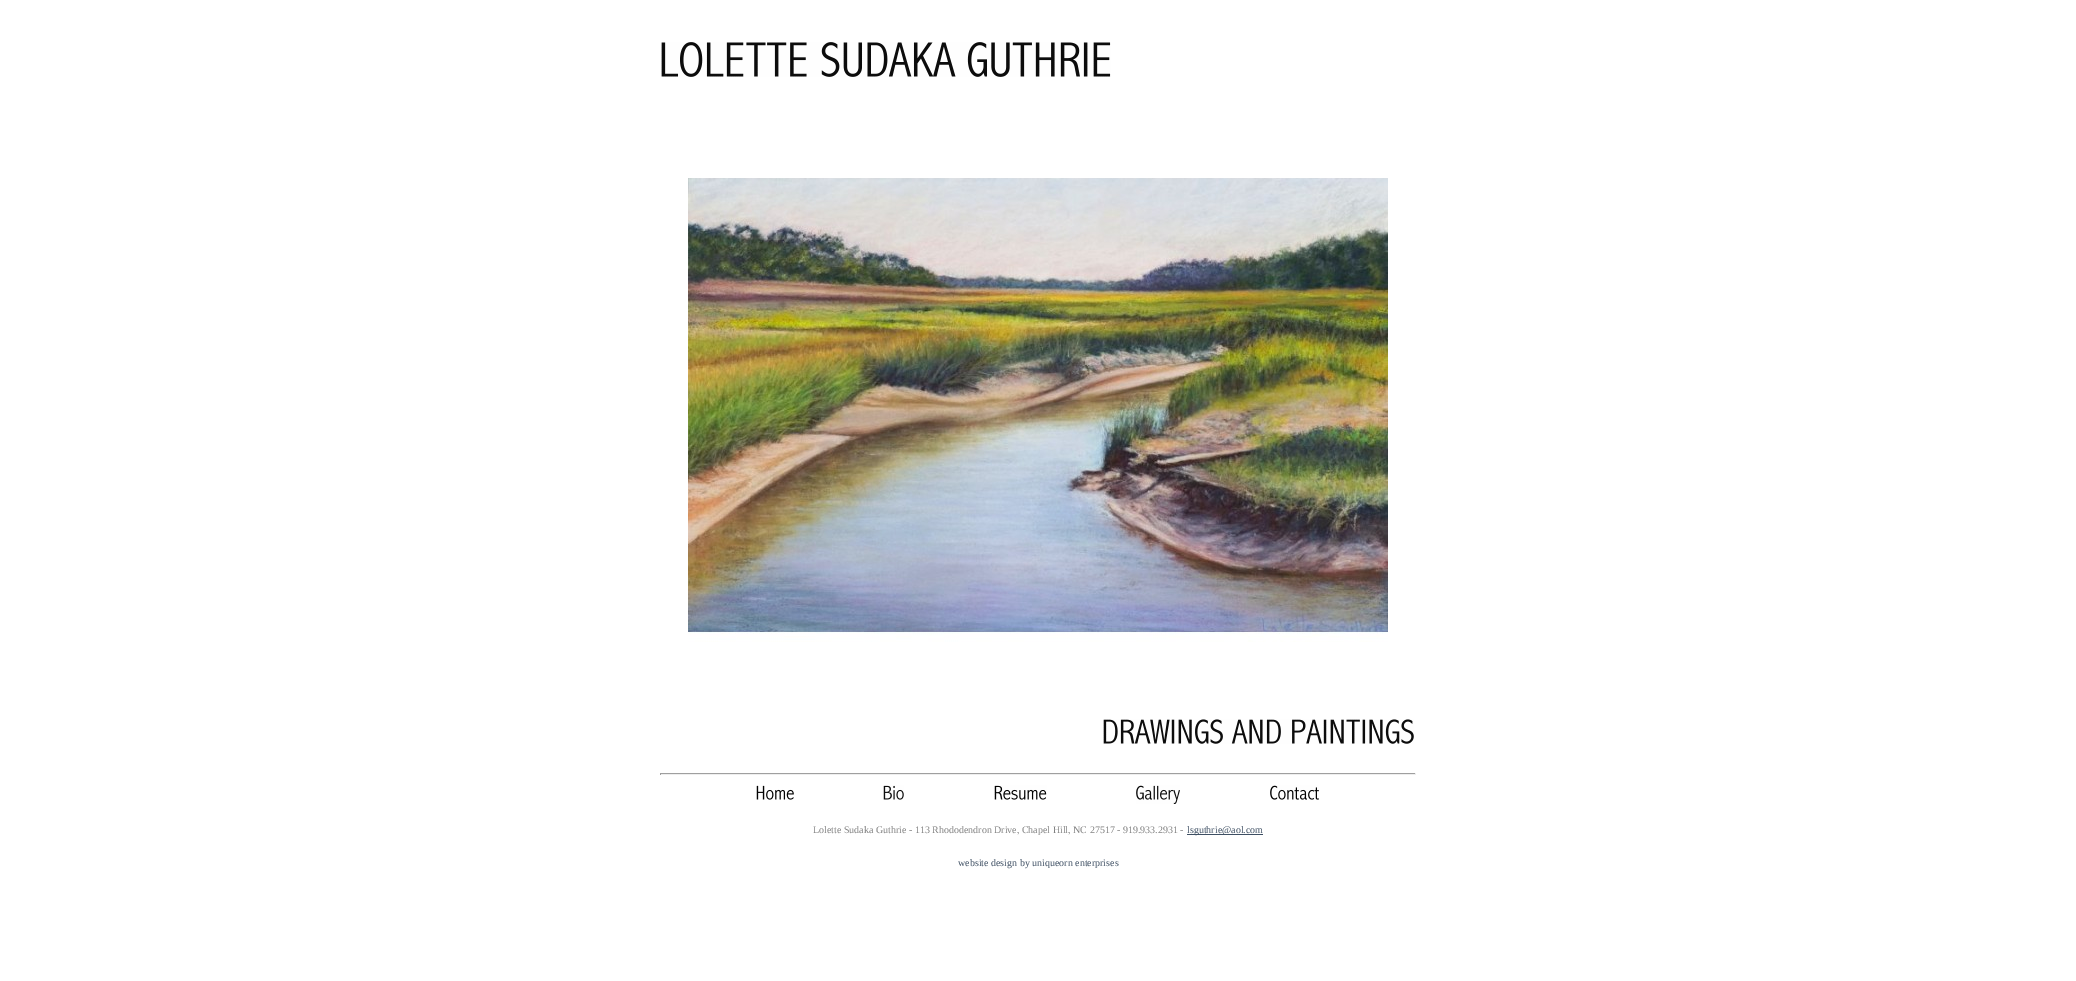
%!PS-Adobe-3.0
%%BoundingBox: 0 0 2076 981
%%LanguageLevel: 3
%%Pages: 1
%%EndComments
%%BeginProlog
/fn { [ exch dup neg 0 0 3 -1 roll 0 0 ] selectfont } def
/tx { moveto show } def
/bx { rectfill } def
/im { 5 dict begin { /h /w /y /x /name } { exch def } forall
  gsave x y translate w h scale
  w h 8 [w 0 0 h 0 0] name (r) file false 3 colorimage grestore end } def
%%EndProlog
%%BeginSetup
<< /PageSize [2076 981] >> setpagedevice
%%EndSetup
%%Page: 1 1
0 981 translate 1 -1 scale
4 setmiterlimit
1 setgray
0 0 2076 981 bx
(image0.raw) 661 42 450 35 im
(image1.raw) 817 98 450 600 im
(image2.raw) 688 178 700 464 im
(image3.raw) 1103 719 311 25 im
0.624 setgray
660 773 756 1 bx
0.933 setgray
1415 773 1 2 bx
660 774 756 1 bx
0.624 setgray
660 773 1 2 bx
(image4.raw) 756 785 38 15 im
(image5.raw) 883 785 21 15 im
(image6.raw) 994 785 53 15 im
(image7.raw) 1136 785 44 19 im
(image8.raw) 1270 785 49 15 im
/LiberationSerif-Regular 10 fn
0.502 setgray
(Lolette Sudaka Guthrie - 113 Rhododendron Drive, Chapel Hill, NC 27517 - 919.933.2931 -) 813 833 tx
0.243 0.31 0.388 setrgbcolor
1187 834 76 1 bx
(lsguthrie@aol.com) 1187 833 tx
(website design by uniqueorn enterprises) 958 866 tx
showpage
%%EOF
